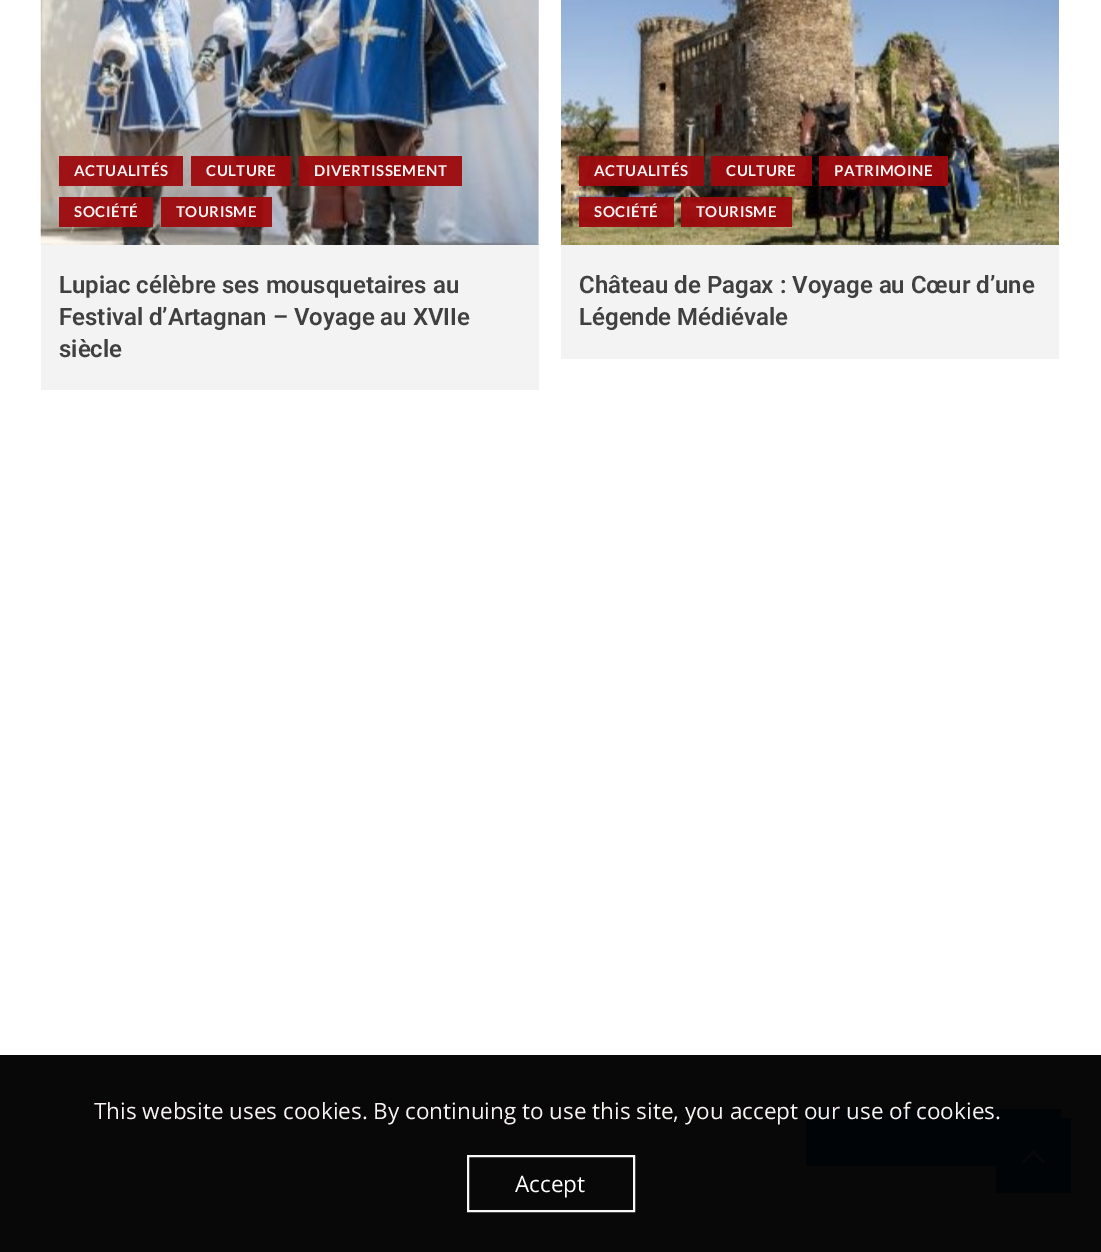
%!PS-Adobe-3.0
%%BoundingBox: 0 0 1101 1252
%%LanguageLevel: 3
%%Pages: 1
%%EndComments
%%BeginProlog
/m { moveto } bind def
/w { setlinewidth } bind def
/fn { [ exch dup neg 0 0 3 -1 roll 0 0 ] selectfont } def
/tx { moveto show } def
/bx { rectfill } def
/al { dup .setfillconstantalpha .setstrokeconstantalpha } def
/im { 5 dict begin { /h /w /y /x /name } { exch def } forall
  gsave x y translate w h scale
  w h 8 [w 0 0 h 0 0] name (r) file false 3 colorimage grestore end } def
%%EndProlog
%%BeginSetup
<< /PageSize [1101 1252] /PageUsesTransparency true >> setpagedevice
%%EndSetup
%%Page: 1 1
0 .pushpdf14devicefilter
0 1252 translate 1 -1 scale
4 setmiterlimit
1 setgray
0 0 1101 1252 bx
0.031 setgray
0 1055 1101 197 bx
0.953 setgray
41 245 498 145 bx
0.855 setgray
538 0 1 245 bx
(image0.raw) 40 0 499 245 im
0.95 al
0.616 0.035 0.051 setrgbcolor
59 156 124 30 bx
/Lato-Bold 15 fn
1 al
0.98 0.953 0.953 setrgbcolor
74 176 m 0.5 0 (ACTUALITÉS) ashow
0.95 al
0.616 0.035 0.051 setrgbcolor
191 156 100 30 bx
1 al
0.98 0.953 0.953 setrgbcolor
206 176 m 0.5 0 (CULTURE) ashow
0.95 al
0.616 0.035 0.051 setrgbcolor
299 156 163 30 bx
1 al
0.98 0.953 0.953 setrgbcolor
314 176 m 0.5 0 (DIVERTISSEMENT) ashow
0.95 al
0.616 0.035 0.051 setrgbcolor
59 197 94 30 bx
1 al
0.98 0.953 0.953 setrgbcolor
74 217 m 0.5 0 (SOCIÉTÉ) ashow
0.95 al
0.616 0.035 0.051 setrgbcolor
161 197 111 30 bx
1 al
0.98 0.953 0.953 setrgbcolor
176 217 m 0.5 0 (TOURISME) ashow
/Roboto-SemiBold 24 fn
0.251 setgray
(Lupiac célèbre ses mousquetaires au) 59 293 tx
(Festival d’Artagnan – Voyage au XVIIe) 59 325 tx
(siècle) 59 357 tx
0.953 setgray
561 245 498 114 bx
(image1.raw) 561 0 498 245 im
0.95 al
0.616 0.035 0.051 setrgbcolor
579 156 125 30 bx
/Lato-Bold 15 fn
1 al
0.98 0.953 0.953 setrgbcolor
594 176 m 0.5 0 (ACTUALITÉS) ashow
0.95 al
0.616 0.035 0.051 setrgbcolor
711 156 101 30 bx
1 al
0.98 0.953 0.953 setrgbcolor
726 176 m 0.5 0 (CULTURE) ashow
0.95 al
0.616 0.035 0.051 setrgbcolor
819 156 129 30 bx
1 al
0.98 0.953 0.953 setrgbcolor
834 176 m 0.5 0 (PATRIMOINE) ashow
0.95 al
0.616 0.035 0.051 setrgbcolor
579 197 95 30 bx
1 al
0.98 0.953 0.953 setrgbcolor
594 217 m 0.5 0 (SOCIÉTÉ) ashow
0.95 al
0.616 0.035 0.051 setrgbcolor
681 197 111 30 bx
1 al
0.98 0.953 0.953 setrgbcolor
696 217 m 0.5 0 (TOURISME) ashow
/Roboto-SemiBold 24 fn
0.251 setgray
(Château de Pagax : Voyage au Cœur d’une) 579 293 tx
(Légende Médiévale) 579 325 tx
0 0.016 0.027 setrgbcolor
806 1109 255 57 bx
996 1118 75 75 bx
/OpenSans-Regular 22.5 fn
0.98 0.953 0.953 setrgbcolor
(This website uses cookies. By continuing to use this site, you accept our use of cookies.) 94 1119 tx
0.973 setgray
2 w
468 1156 166 55 rectstroke
1 setgray
(Accept) 515 1192 tx
(image2.raw) 1021 1150 25 14 im
.poppdf14devicefilter showpage
%%EOF
